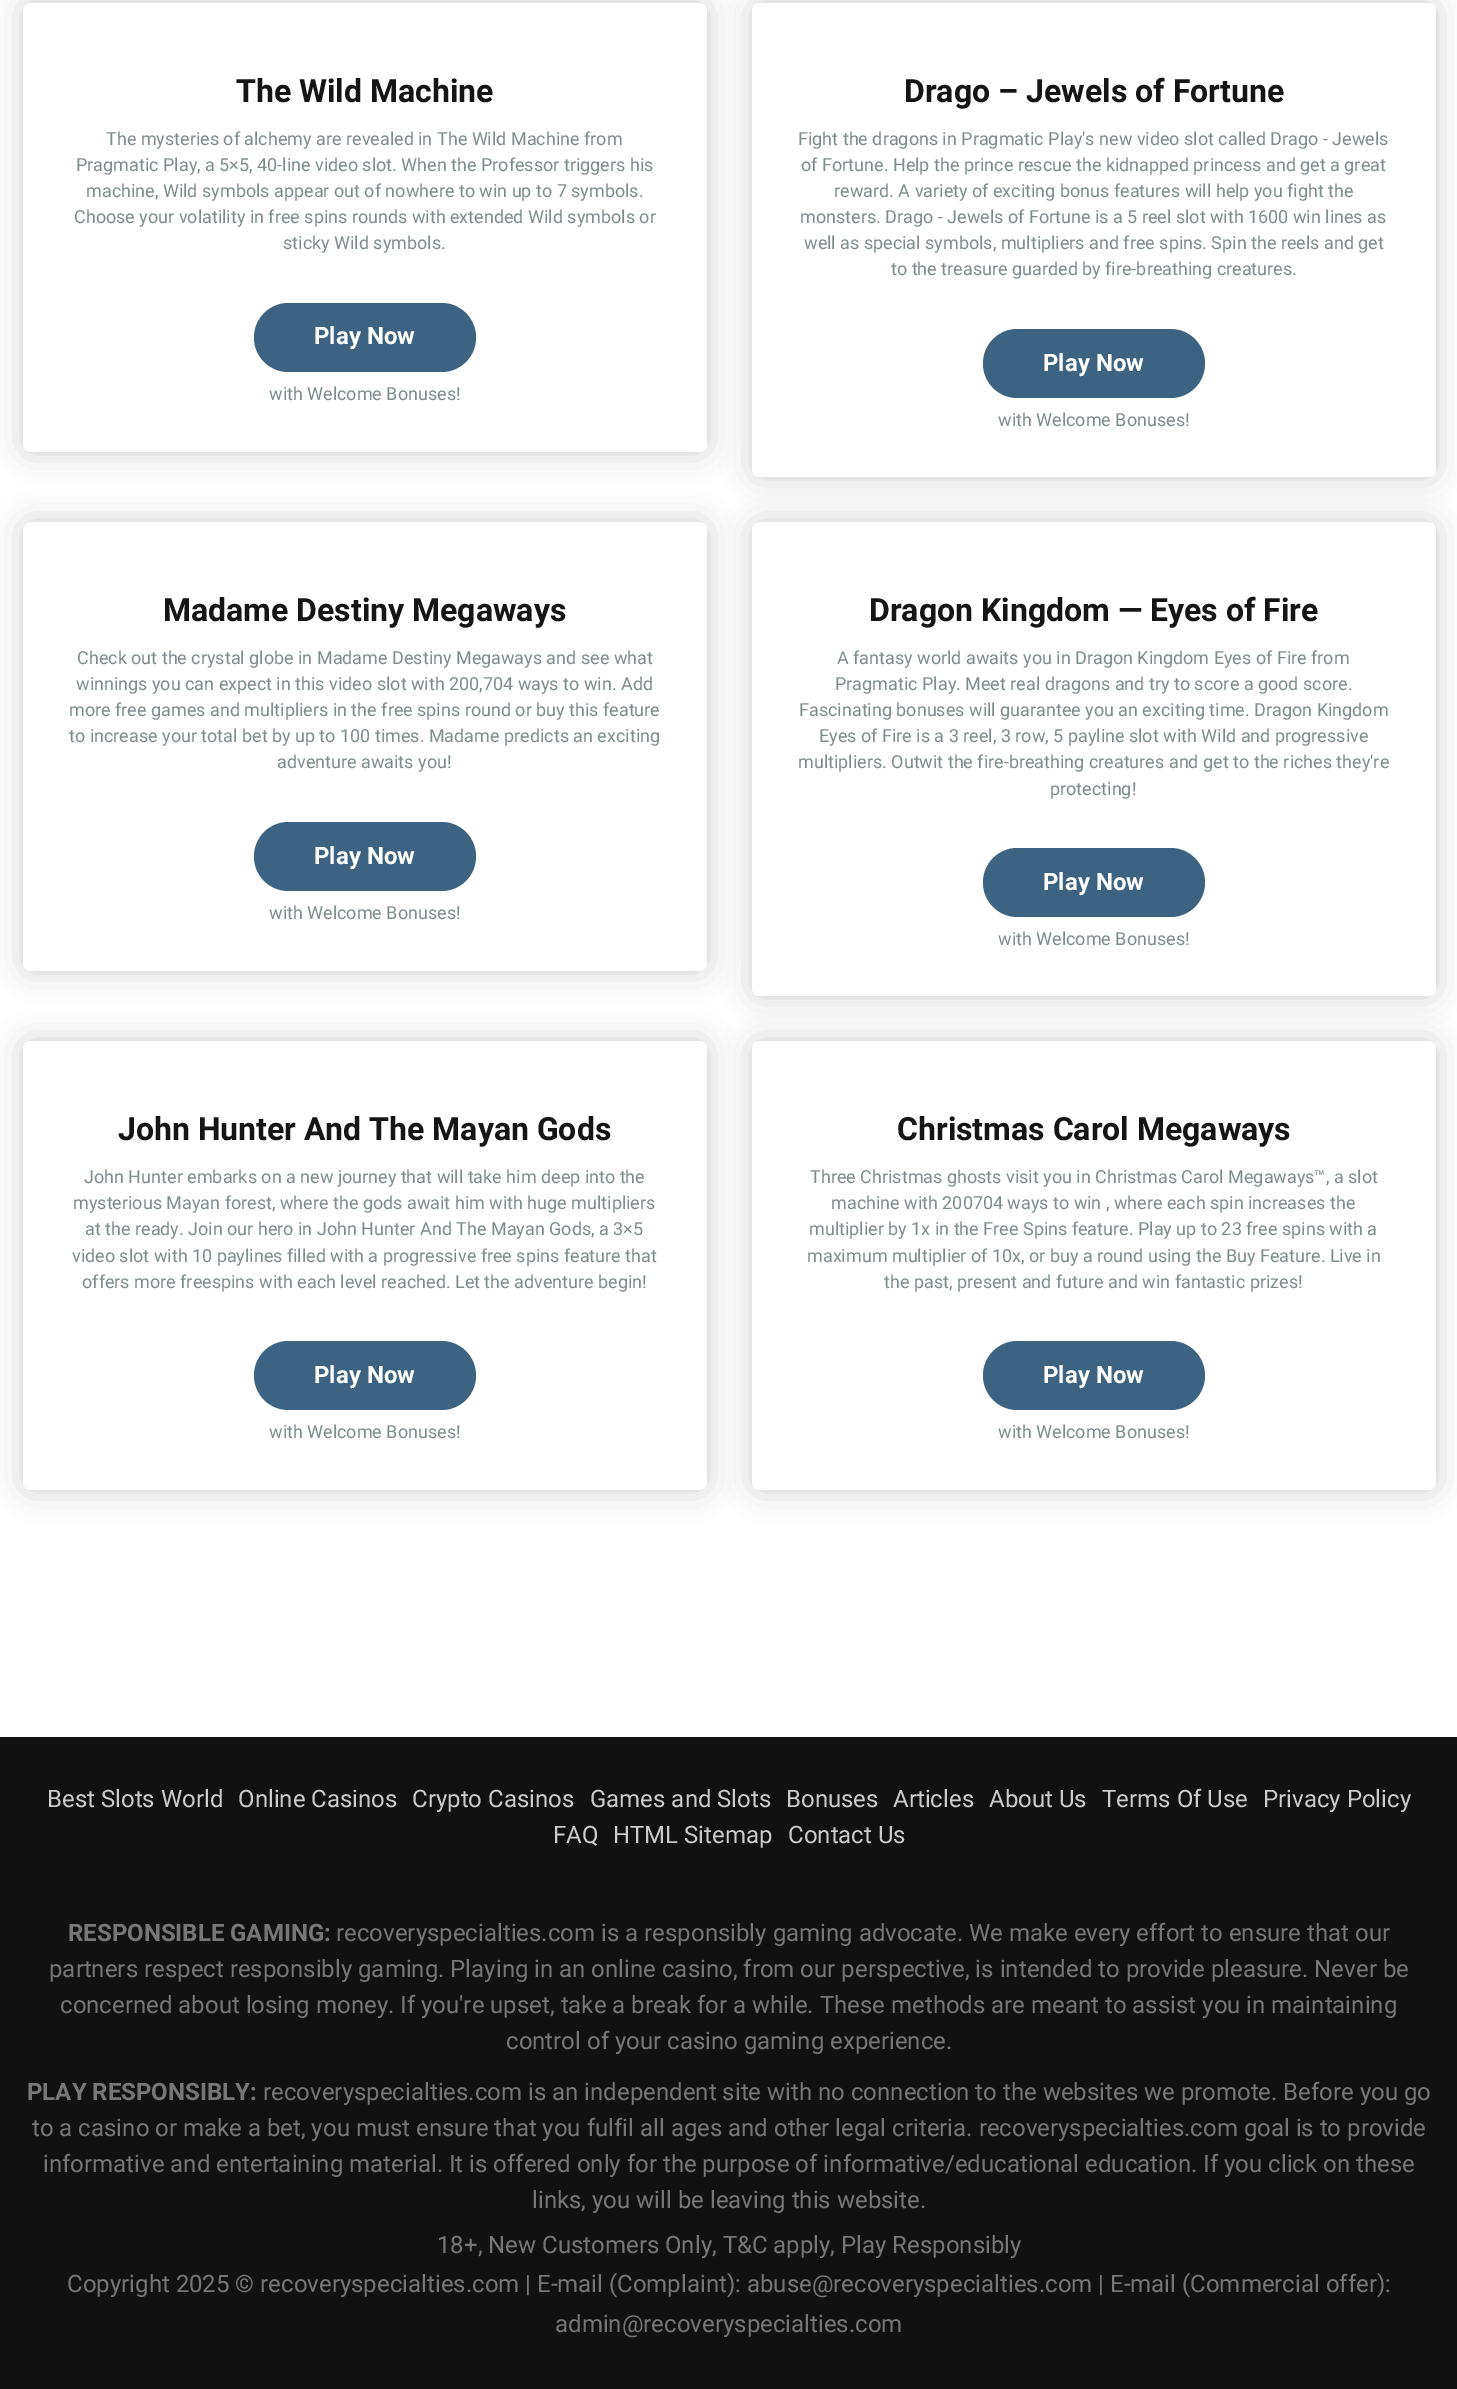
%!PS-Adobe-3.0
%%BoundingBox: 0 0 1457 2389
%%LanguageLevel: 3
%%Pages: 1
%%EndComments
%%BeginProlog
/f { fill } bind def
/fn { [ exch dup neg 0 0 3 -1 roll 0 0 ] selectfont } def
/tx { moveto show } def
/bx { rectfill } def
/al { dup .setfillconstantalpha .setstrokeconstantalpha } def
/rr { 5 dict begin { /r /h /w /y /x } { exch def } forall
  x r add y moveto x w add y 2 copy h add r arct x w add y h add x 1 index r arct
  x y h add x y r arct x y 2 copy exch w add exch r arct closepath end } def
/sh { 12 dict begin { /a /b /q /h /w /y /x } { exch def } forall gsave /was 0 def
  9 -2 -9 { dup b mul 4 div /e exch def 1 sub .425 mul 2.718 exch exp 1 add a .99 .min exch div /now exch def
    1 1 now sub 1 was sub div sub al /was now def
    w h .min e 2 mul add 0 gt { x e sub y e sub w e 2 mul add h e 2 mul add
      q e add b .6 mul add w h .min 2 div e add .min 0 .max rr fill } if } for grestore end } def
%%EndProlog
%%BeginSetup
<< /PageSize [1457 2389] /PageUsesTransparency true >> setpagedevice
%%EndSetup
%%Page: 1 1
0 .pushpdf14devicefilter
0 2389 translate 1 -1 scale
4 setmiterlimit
1 setgray
0 0 1457 2389 bx
0 setgray
23 3 684 449 8 15 0.2 sh
1 setgray
23 3 684 449 8 rr f
/Roboto-Bold 32 fn
0.082 setgray
(The Wild Machine) 236 102 tx
/Roboto-Regular 18 fn
0.498 0.549 0.553 setrgbcolor
(The mysteries of alchemy are revealed in The Wild Machine from) 106 145 tx
(Pragmatic Play, a 5×5, 40-line video slot. When the Professor triggers his) 76 171 tx
(machine, Wild symbols appear out of nowhere to win up to 7 symbols.) 86 197 tx
(Choose your volatility in free spins rounds with extended Wild symbols or) 74 223 tx
(sticky Wild symbols.) 283 249 tx
0.235 0.388 0.51 setrgbcolor
254 303 222 69 34.5 rr f
/Roboto-Bold 24 fn
1 setgray
(Play Now) 314 344 tx
/Roboto-Regular 18 fn
0.498 0.549 0.553 setrgbcolor
(with Welcome Bonuses!) 269 400 tx
0 setgray
752 3 684 474 8 15 0.2 sh
1 setgray
752 3 684 474 8 rr f
/Roboto-Bold 32 fn
0.082 setgray
(Drago – Jewels of Fortune) 904 102 tx
/Roboto-Regular 18 fn
0.498 0.549 0.553 setrgbcolor
(Fight the dragons in Pragmatic Play's new video slot called Drago - Jewels) 798 145 tx
(of Fortune. Help the prince rescue the kidnapped princess and get a great) 801 171 tx
(reward. A variety of exciting bonus features will help you fight the) 834 197 tx
(monsters. Drago - Jewels of Fortune is a 5 reel slot with 1600 win lines as) 800 223 tx
(well as special symbols, multipliers and free spins. Spin the reels and get) 804 249 tx
(to the treasure guarded by fire-breathing creatures.) 891 275 tx
0.235 0.388 0.51 setrgbcolor
983 329 222 69 34.5 rr f
/Roboto-Bold 24 fn
1 setgray
(Play Now) 1043 371 tx
/Roboto-Regular 18 fn
0.498 0.549 0.553 setrgbcolor
(with Welcome Bonuses!) 998 426 tx
0 setgray
23 522 684 449 8 15 0.2 sh
1 setgray
23 522 684 449 8 rr f
/Roboto-Bold 32 fn
0.082 setgray
(Madame Destiny Megaways) 163 621 tx
/Roboto-Regular 18 fn
0.498 0.549 0.553 setrgbcolor
(Check out the crystal globe in Madame Destiny Megaways and see what) 77 664 tx
(winnings you can expect in this video slot with 200,704 ways to win. Add) 76 690 tx
(more free games and multipliers in the free spins round or buy this feature) 69 716 tx
(to increase your total bet by up to 100 times. Madame predicts an exciting) 69 742 tx
(adventure awaits you!) 277 768 tx
0.235 0.388 0.51 setrgbcolor
254 822 222 69 34.5 rr f
/Roboto-Bold 24 fn
1 setgray
(Play Now) 314 864 tx
/Roboto-Regular 18 fn
0.498 0.549 0.553 setrgbcolor
(with Welcome Bonuses!) 269 919 tx
0 setgray
752 522 684 474 8 15 0.2 sh
1 setgray
752 522 684 474 8 rr f
/Roboto-Bold 32 fn
0.082 setgray
(Dragon Kingdom — Eyes of Fire) 869 621 tx
/Roboto-Regular 18 fn
0.498 0.549 0.553 setrgbcolor
(A fantasy world awaits you in Dragon Kingdom Eyes of Fire from) 837 664 tx
(Pragmatic Play. Meet real dragons and try to score a good score.) 835 690 tx
(Fascinating bonuses will guarantee you an exciting time. Dragon Kingdom) 799 716 tx
(Eyes of Fire is a 3 reel, 3 row, 5 payline slot with Wild and progressive) 819 742 tx
(multipliers. Outwit the fire-breathing creatures and get to the riches they're) 798 768 tx
(protecting!) 1050 795 tx
0.235 0.388 0.51 setrgbcolor
983 848 222 69 34.5 rr f
/Roboto-Bold 24 fn
1 setgray
(Play Now) 1043 890 tx
/Roboto-Regular 18 fn
0.498 0.549 0.553 setrgbcolor
(with Welcome Bonuses!) 998 945 tx
0 setgray
23 1041 684 449 8 15 0.2 sh
1 setgray
23 1041 684 449 8 rr f
/Roboto-Bold 32 fn
0.082 setgray
(John Hunter And The Mayan Gods) 118 1140 tx
/Roboto-Regular 18 fn
0.498 0.549 0.553 setrgbcolor
(John Hunter embarks on a new journey that will take him deep into the) 84 1183 tx
(mysterious Mayan forest, where the gods await him with huge multipliers) 73 1209 tx
(at the ready. Join our hero in John Hunter And The Mayan Gods, a 3×5) 85 1235 tx
(video slot with 10 paylines filled with a progressive free spins feature that) 72 1262 tx
(offers more freespins with each level reached. Let the adventure begin!) 82 1288 tx
0.235 0.388 0.51 setrgbcolor
254 1341 222 69 34.5 rr f
/Roboto-Bold 24 fn
1 setgray
(Play Now) 314 1383 tx
/Roboto-Regular 18 fn
0.498 0.549 0.553 setrgbcolor
(with Welcome Bonuses!) 269 1438 tx
0 setgray
752 1041 684 449 8 15 0.2 sh
1 setgray
752 1041 684 449 8 rr f
/Roboto-Bold 32 fn
0.082 setgray
(Christmas Carol Megaways) 897 1140 tx
/Roboto-Regular 18 fn
0.498 0.549 0.553 setrgbcolor
(Three Christmas ghosts visit you in Christmas Carol Megaways™, a slot) 810 1183 tx
(machine with 200704 ways to win , where each spin increases the) 831 1209 tx
(multiplier by 1x in the Free Spins feature. Play up to 23 free spins with a) 809 1235 tx
(maximum multiplier of 10x, or buy a round using the Buy Feature. Live in) 807 1262 tx
(the past, present and future and win fantastic prizes!) 884 1288 tx
0.235 0.388 0.51 setrgbcolor
983 1341 222 69 34.5 rr f
/Roboto-Bold 24 fn
1 setgray
(Play Now) 1043 1383 tx
/Roboto-Regular 18 fn
0.498 0.549 0.553 setrgbcolor
(with Welcome Bonuses!) 998 1438 tx
0.067 setgray
0 1737 1457 652 bx
/Roboto-Regular 24 fn
0.8 setgray
(Best Slots World) 47 1807 tx
(Online Casinos) 238 1807 tx
(Crypto Casinos) 412 1807 tx
(Games and Slots) 590 1807 tx
(Bonuses) 786 1807 tx
(Articles) 893 1807 tx
(About Us) 989 1807 tx
(Terms Of Use) 1102 1807 tx
(Privacy Policy) 1263 1807 tx
(FAQ) 553 1843 tx
(HTML Sitemap) 613 1843 tx
(Contact Us) 788 1843 tx
/Roboto-Bold 24 fn
0.467 setgray
(RESPONSIBLE GAMING:) 68 1941 tx
/Roboto-Regular 24 fn
(recoveryspecialties.com is a responsibly gaming advocate. We make every effort to ensure that our) 336 1941 tx
(partners respect responsibly gaming. Playing in an online casino, from our perspective, is intended to provide pleasure. Never be) 49 1977 tx
(concerned about losing money. If you're upset, take a break for a while. These methods are meant to assist you in maintaining) 60 2013 tx
(control of your casino gaming experience.) 506 2049 tx
/Roboto-Bold 24 fn
(PLAY RESPONSIBLY:) 27 2100 tx
/Roboto-Regular 24 fn
(recoveryspecialties.com is an independent site with no connection to the websites we promote. Before you go) 263 2100 tx
(to a casino or make a bet, you must ensure that you fulfil all ages and other legal criteria. recoveryspecialties.com goal is to provide) 32 2136 tx
(informative and entertaining material. It is offered only for the purpose of informative/educational education. If you click on these) 43 2172 tx
(links, you will be leaving this website.) 532 2208 tx
(18+, New Customers Only, T&C apply, Play Responsibly) 437 2253 tx
(Copyright 2025 © recoveryspecialties.com | E-mail \(Complaint\): abuse@recoveryspecialties.com | E-mail \(Commercial offer\):) 67 2292 tx
(admin@recoveryspecialties.com) 555 2332 tx
.poppdf14devicefilter showpage
%%EOF
